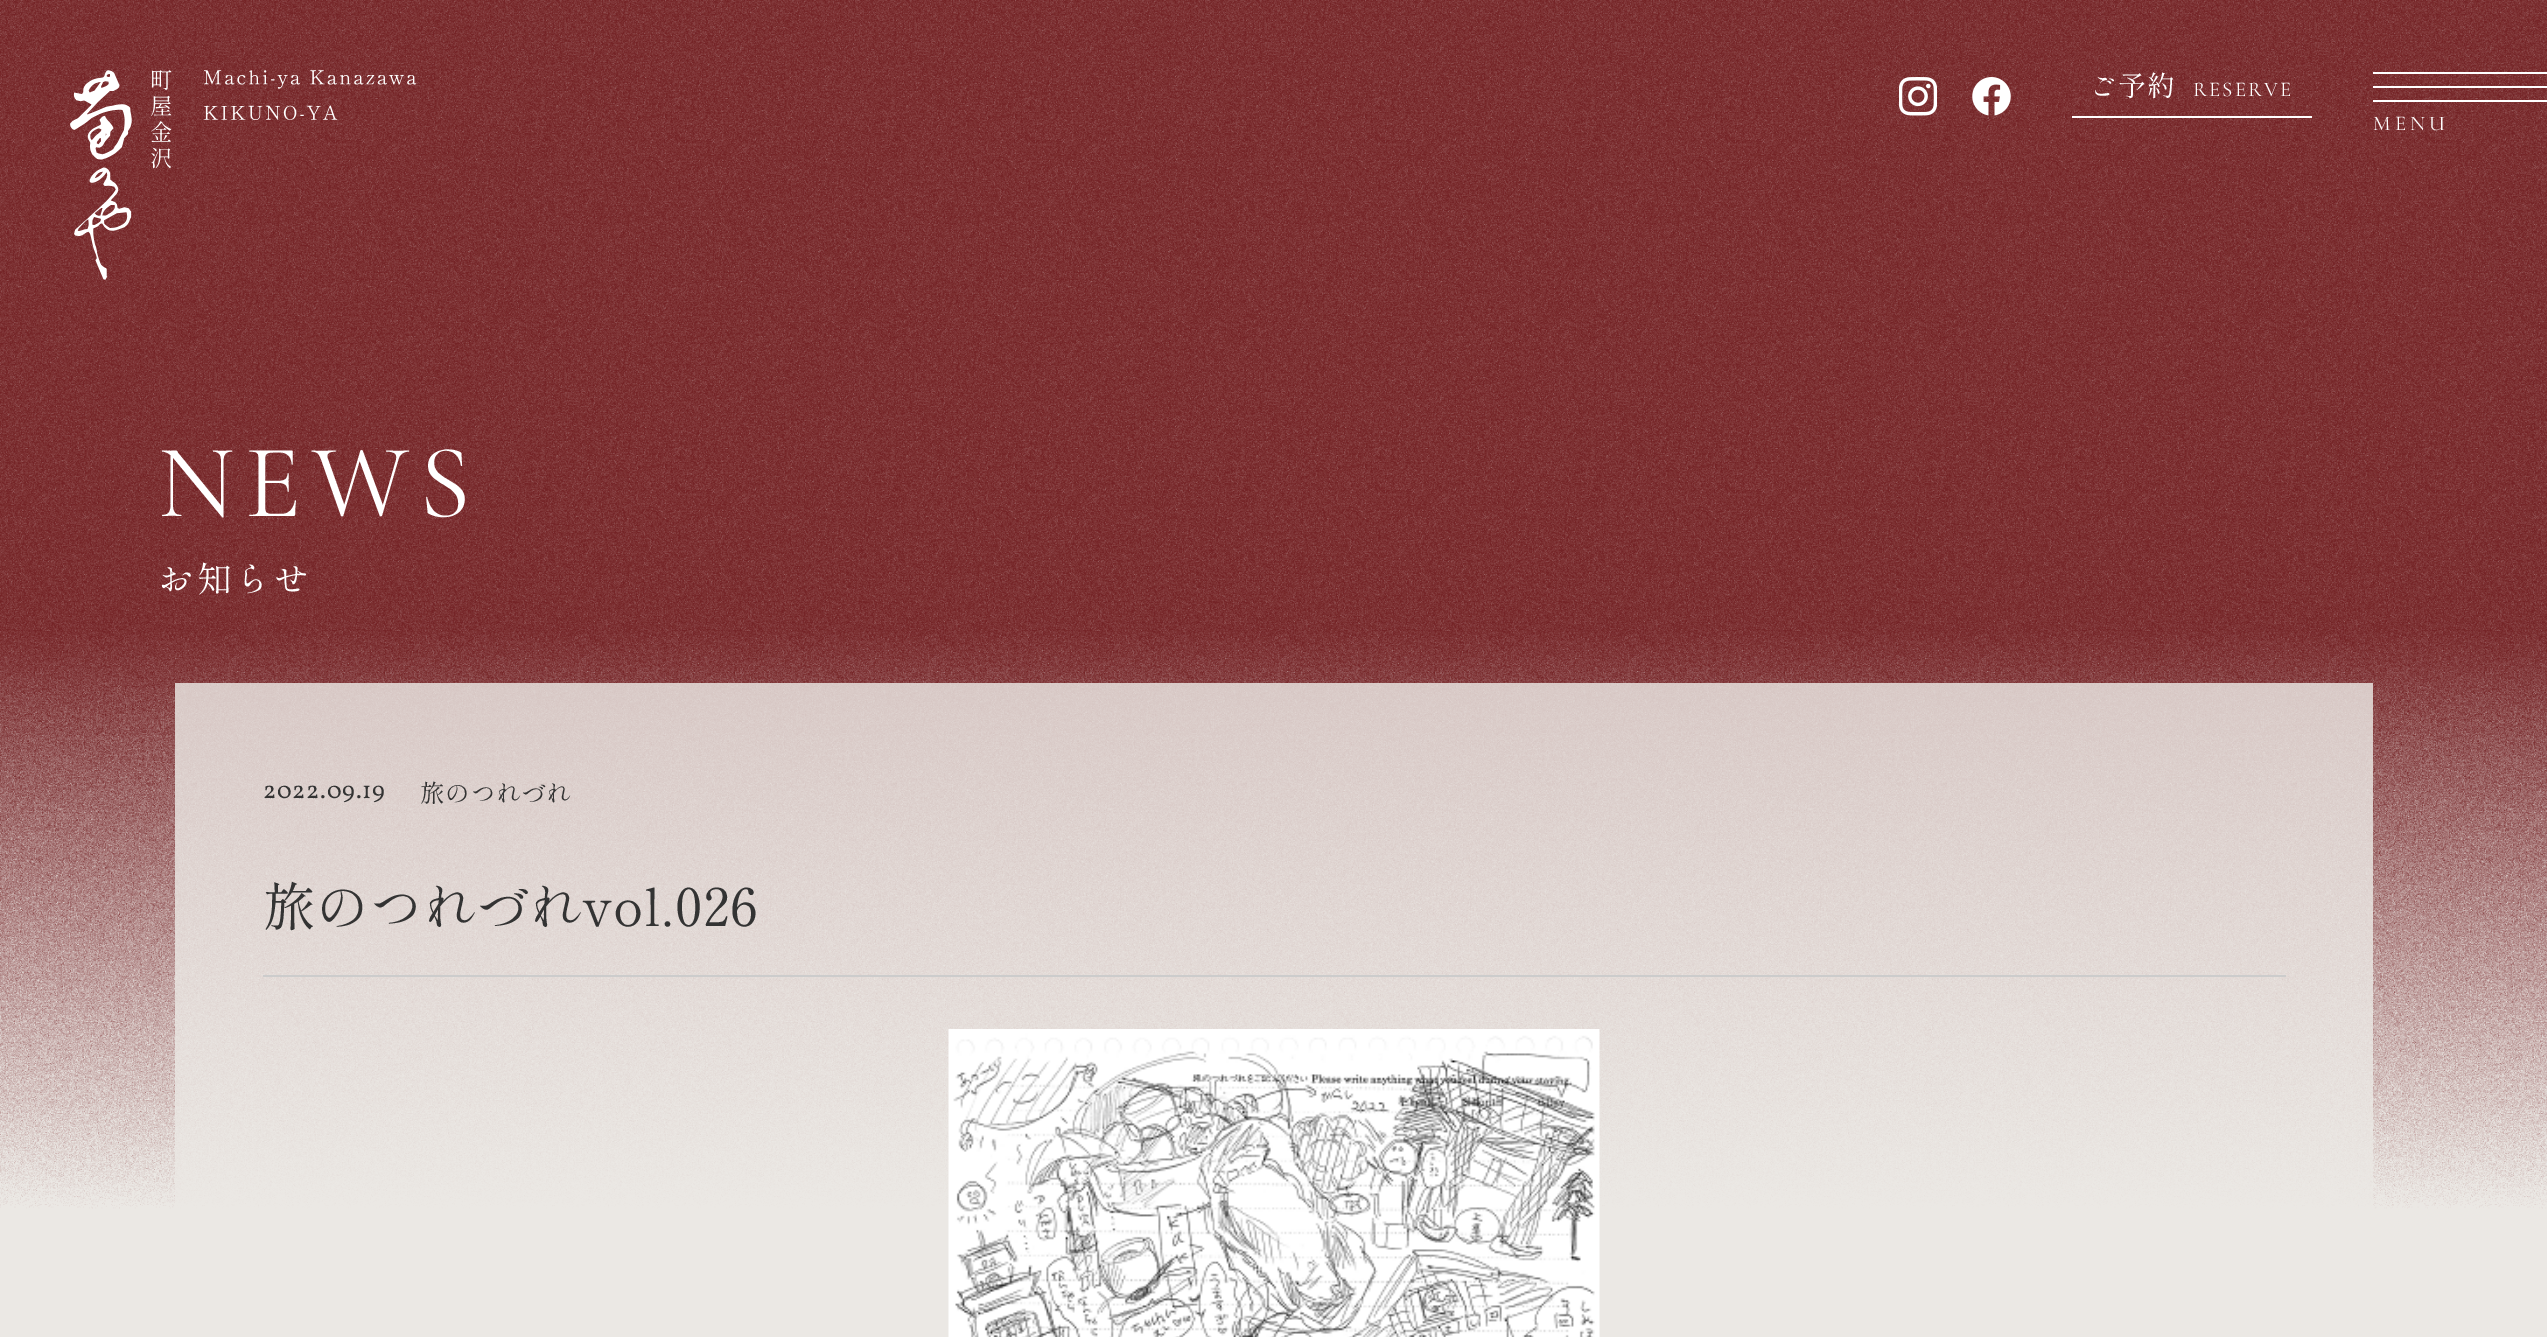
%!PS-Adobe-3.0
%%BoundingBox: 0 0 2547 1337
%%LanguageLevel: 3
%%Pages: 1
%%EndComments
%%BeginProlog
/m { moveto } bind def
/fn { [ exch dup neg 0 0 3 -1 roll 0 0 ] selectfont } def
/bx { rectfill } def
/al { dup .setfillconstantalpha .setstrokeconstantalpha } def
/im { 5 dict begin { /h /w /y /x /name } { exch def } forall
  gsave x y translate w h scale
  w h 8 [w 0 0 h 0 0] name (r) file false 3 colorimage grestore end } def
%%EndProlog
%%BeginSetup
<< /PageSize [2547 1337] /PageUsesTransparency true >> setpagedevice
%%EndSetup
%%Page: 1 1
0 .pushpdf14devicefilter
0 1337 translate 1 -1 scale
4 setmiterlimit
0.922 0.91 0.894 setrgbcolor
0 0 2547 1337 bx
(image3.raw) 0 0 2547 1209 im
(image0.raw) 70 70 347 210 im
(image1.raw) 1899 77 38 39 im
(image2.raw) 1972 77 39 39 im
/ShipporiMincho-Regular 28 fn
1 setgray
2089 96 m 0.75 0 (ご予約) ashow
/CormorantInfant-Light 21 fn
2193 96 m 2 0 (RESERVE) ashow
2072 116 240 2 bx
2373 72 174 2 bx
2373 86 174 2 bx
2373 100 174 2 bx
2373 130 m 4 0 (MENU) ashow
/CormorantInfant-Light 105 fn
158 516 m 10.5 0 (NEWS) ashow
/ShipporiMincho-Regular 35 fn
158 592 m 3.5 0 (お知らせ) ashow
0.82 al
0.922 0.91 0.894 setrgbcolor
175 683 2198 526 bx
1 al
0.8 setgray
263 975 2023 2 bx
/Vollkorn-Regular 24.5 fn
0.2 setgray
263 798 m 0.75 0 (2022.09.19) ashow
/ShipporiMincho-Regular 24.5 fn
420 802 m 0.75 0 (旅のつれづれ) ashow
/ShipporiMincho-Regular 52.5 fn
263 926 m 0.75 0 (旅のつれづれvol.026) ashow
(image4.raw) 948 1029 652 308 im
.poppdf14devicefilter showpage
%%EOF
